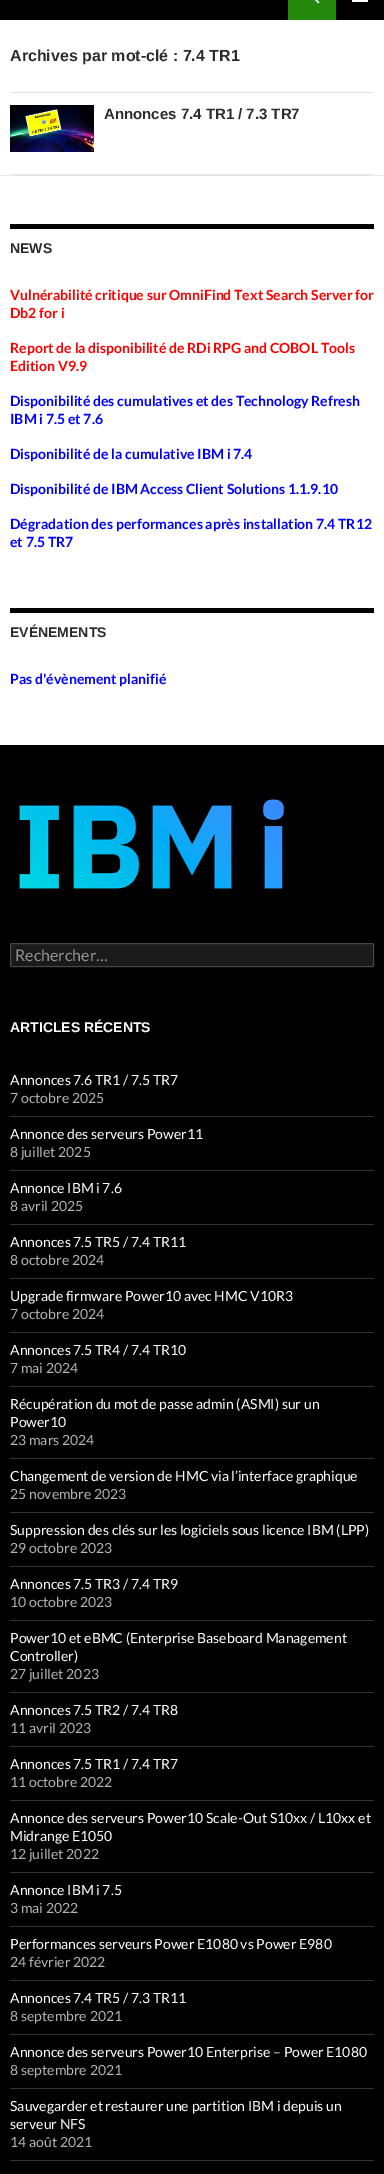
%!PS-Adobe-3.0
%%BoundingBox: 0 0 384 2174
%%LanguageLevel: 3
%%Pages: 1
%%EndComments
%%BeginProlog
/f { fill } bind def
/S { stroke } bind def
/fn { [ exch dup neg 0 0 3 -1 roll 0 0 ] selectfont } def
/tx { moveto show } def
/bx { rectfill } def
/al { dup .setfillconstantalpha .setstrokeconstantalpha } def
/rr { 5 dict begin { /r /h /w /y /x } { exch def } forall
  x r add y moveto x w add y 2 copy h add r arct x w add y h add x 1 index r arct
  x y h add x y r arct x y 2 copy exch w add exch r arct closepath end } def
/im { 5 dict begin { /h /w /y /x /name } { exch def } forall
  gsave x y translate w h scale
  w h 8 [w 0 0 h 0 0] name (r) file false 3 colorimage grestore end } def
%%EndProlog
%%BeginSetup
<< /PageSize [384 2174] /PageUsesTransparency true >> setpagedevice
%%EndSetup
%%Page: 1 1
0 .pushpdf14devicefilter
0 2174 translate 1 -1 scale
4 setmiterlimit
1 setgray
0 0 384 2174 bx
0 setgray
0 0 384 20 bx
0.141 0.537 0.051 setrgbcolor
288 0 48 20 bx
(image0.raw) 314 0 6 4 im
1 setgray
352 0 16 2 bx
0.902 setgray
10 92 364 1 bx
/LiberationSans-Bold 16 fn
0.169 setgray
(Archives par mot-clé : 7.4 TR1) 10 61 tx
0.902 setgray
10 174 364 1 bx
(image1.raw) 10 105 84 47 im
/LiberationSans-Bold 15 fn
0.169 setgray
(Annonces 7.4 TR1 / 7.3 TR7) 104 119 tx
0.902 setgray
0 175 384 1 bx
0 setgray
10 224 364 5 bx
/LiberationSans-Bold 14 fn
0.169 setgray
(NEWS) 10 253 tx
/Lato-Bold 14 fn
1 0 0 setrgbcolor
(Vulnérabilité critique sur OmniFind Text Search Server for) 10 300 tx
(Db2 for i) 10 318 tx
(Report de la disponibilité de RDi RPG and COBOL Tools) 10 353 tx
(Edition V9.9) 10 371 tx
0 0 1 setrgbcolor
(Disponibilité des cumulatives et des Technology Refresh) 10 406 tx
(IBM i 7.5 et 7.6) 10 424 tx
(Disponibilité de la cumulative IBM i 7.4) 10 459 tx
(Disponibilité de IBM Access Client Solutions 1.1.9.10) 10 494 tx
(Dégradation des performances après installation 7.4 TR12) 10 529 tx
(et 7.5 TR7) 10 547 tx
0 setgray
10 608 364 5 bx
/LiberationSans-Bold 14 fn
0.169 setgray
(EVÉNEMENTS) 10 637 tx
/Lato-Bold 14 fn
0 0 1 setrgbcolor
(Pas d'évènement planifié) 10 684 tx
0 setgray
0 745 384 1429 bx
(image2.raw) 19 799 265 90 im
0.102 setgray
10 943 364 24 2 rr f
0.2 al
1 setgray
10.5 943.5 363 23 1.5 rr S
/Lato-Regular 16 fn
1 al
0.576 setgray
(Rechercher…) 15 961 tx
/LiberationSans-Bold 14 fn
1 setgray
(ARTICLES RÉCENTS) 10 1032 tx
/Lato-Regular 14 fn
(Annonces 7.6 TR1 / 7.5 TR7) 10 1085 tx
0.702 setgray
(7 octobre 2025) 10 1103 tx
0.2 setgray
10 1116 364 1 bx
1 setgray
(Annonce des serveurs Power11) 10 1139 tx
0.702 setgray
(8 juillet 2025) 10 1157 tx
0.2 setgray
10 1170 364 1 bx
1 setgray
(Annonce IBM i 7.6) 10 1193 tx
0.702 setgray
(8 avril 2025) 10 1211 tx
0.2 setgray
10 1224 364 1 bx
1 setgray
(Annonces 7.5 TR5 / 7.4 TR11) 10 1247 tx
0.702 setgray
(8 octobre 2024) 10 1265 tx
0.2 setgray
10 1278 364 1 bx
1 setgray
(Upgrade firmware Power10 avec HMC V10R3) 10 1301 tx
0.702 setgray
(7 octobre 2024) 10 1319 tx
0.2 setgray
10 1332 364 1 bx
1 setgray
(Annonces 7.5 TR4 / 7.4 TR10) 10 1355 tx
0.702 setgray
(7 mai 2024) 10 1373 tx
0.2 setgray
10 1386 364 1 bx
1 setgray
(Récupération du mot de passe admin \(ASMI\) sur un) 10 1409 tx
(Power10) 10 1427 tx
0.702 setgray
(23 mars 2024) 10 1445 tx
0.2 setgray
10 1458 364 1 bx
1 setgray
(Changement de version de HMC via l’interface graphique) 10 1481 tx
0.702 setgray
(25 novembre 2023) 10 1499 tx
0.2 setgray
10 1512 364 1 bx
1 setgray
(Suppression des clés sur les logiciels sous licence IBM \(LPP\)) 10 1535 tx
0.702 setgray
(29 octobre 2023) 10 1553 tx
0.2 setgray
10 1566 364 1 bx
1 setgray
(Annonces 7.5 TR3 / 7.4 TR9) 10 1589 tx
0.702 setgray
(10 octobre 2023) 10 1607 tx
0.2 setgray
10 1620 364 1 bx
1 setgray
(Power10 et eBMC \(Enterprise Baseboard Management) 10 1643 tx
(Controller\)) 10 1661 tx
0.702 setgray
(27 juillet 2023) 10 1679 tx
0.2 setgray
10 1692 364 1 bx
1 setgray
(Annonces 7.5 TR2 / 7.4 TR8) 10 1715 tx
0.702 setgray
(11 avril 2023) 10 1733 tx
0.2 setgray
10 1746 364 1 bx
1 setgray
(Annonces 7.5 TR1 / 7.4 TR7) 10 1769 tx
0.702 setgray
(11 octobre 2022) 10 1787 tx
0.2 setgray
10 1800 364 1 bx
1 setgray
(Annonce des serveurs Power10 Scale-Out S10xx / L10xx et) 10 1823 tx
(Midrange E1050) 10 1841 tx
0.702 setgray
(12 juillet 2022) 10 1859 tx
0.2 setgray
10 1872 364 1 bx
1 setgray
(Annonce IBM i 7.5) 10 1895 tx
0.702 setgray
(3 mai 2022) 10 1913 tx
0.2 setgray
10 1926 364 1 bx
1 setgray
(Performances serveurs Power E1080 vs Power E980) 10 1949 tx
0.702 setgray
(24 février 2022) 10 1967 tx
0.2 setgray
10 1980 364 1 bx
1 setgray
(Annonces 7.4 TR5 / 7.3 TR11) 10 2003 tx
0.702 setgray
(8 septembre 2021) 10 2021 tx
0.2 setgray
10 2034 364 1 bx
1 setgray
(Annonce des serveurs Power10 Enterprise – Power E1080) 10 2057 tx
0.702 setgray
(8 septembre 2021) 10 2075 tx
0.2 setgray
10 2088 364 1 bx
1 setgray
(Sauvegarder et restaurer une partition IBM i depuis un) 10 2111 tx
(serveur NFS) 10 2129 tx
0.702 setgray
(14 août 2021) 10 2147 tx
0.2 setgray
10 2160 364 1 bx
.poppdf14devicefilter showpage
%%EOF
